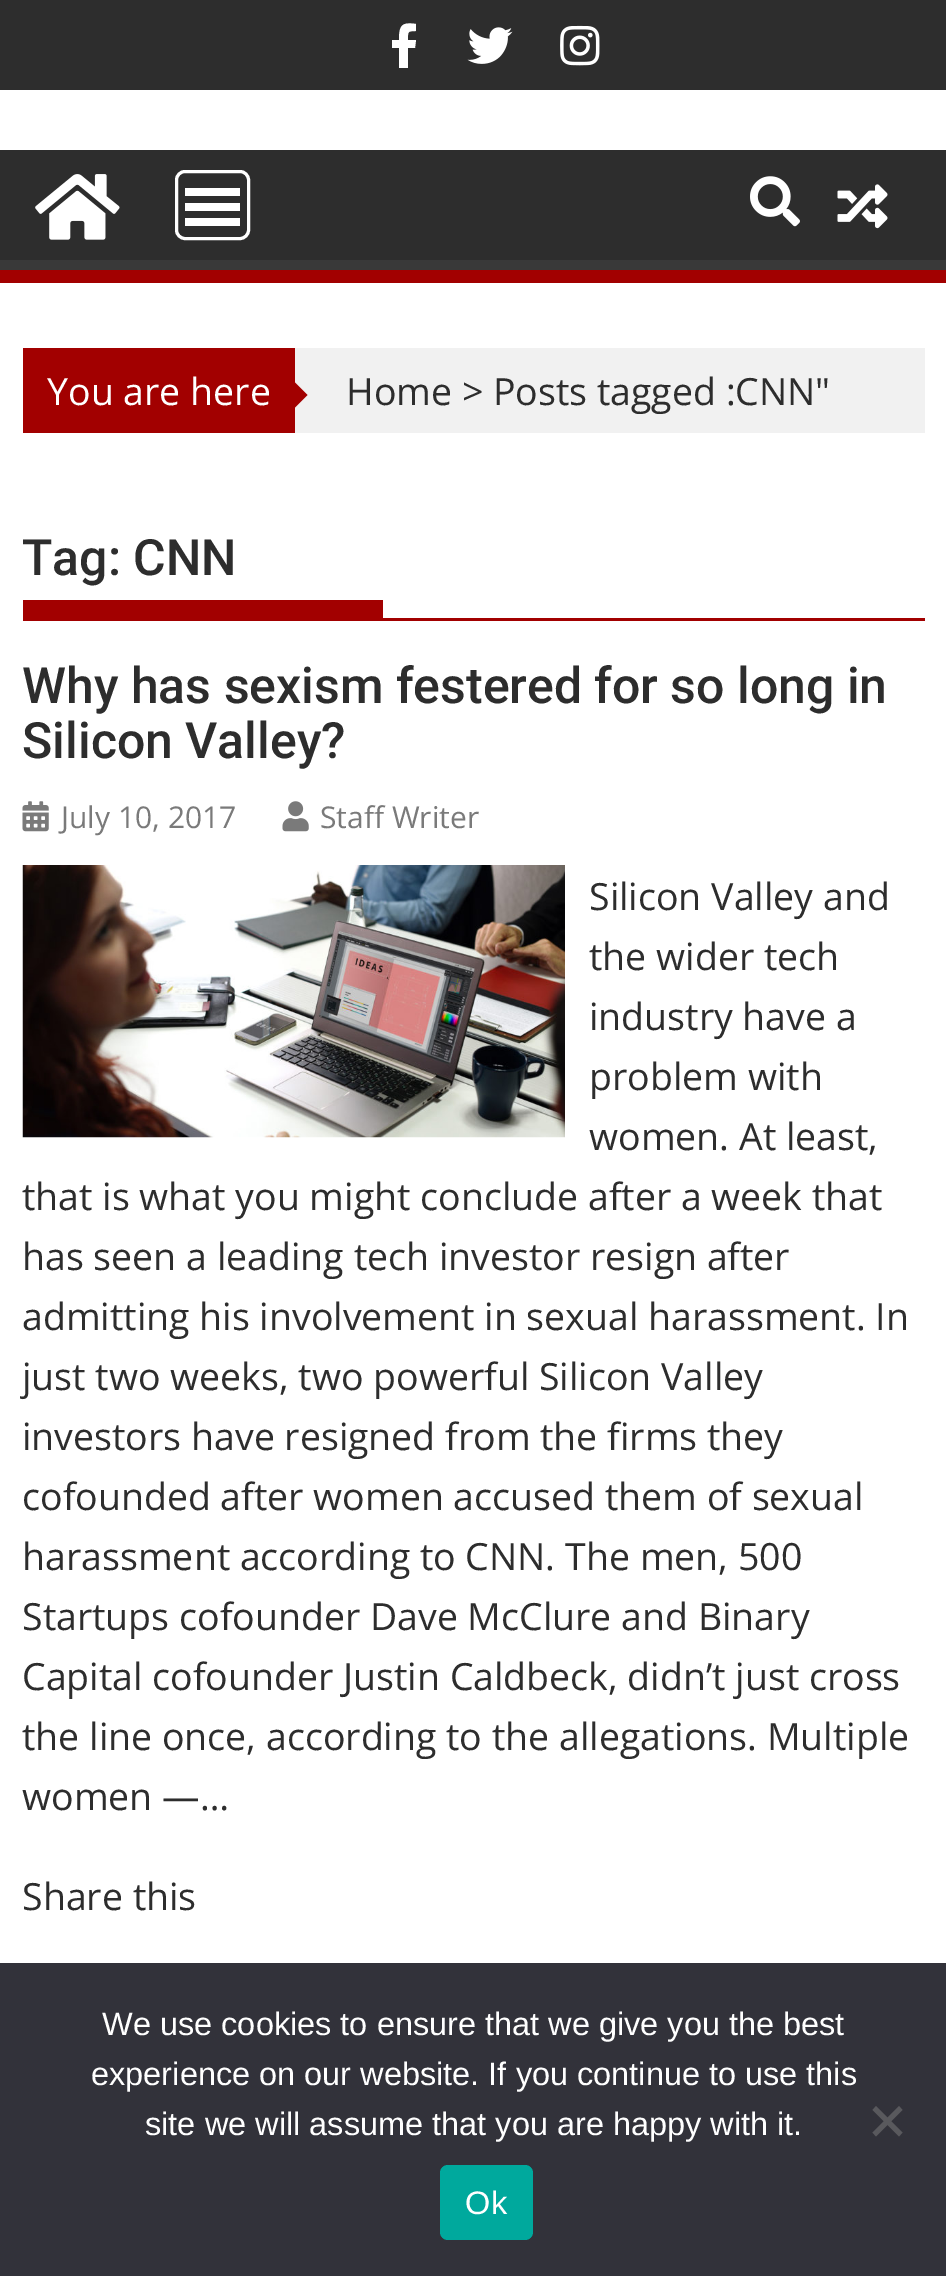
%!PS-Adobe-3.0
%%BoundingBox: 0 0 946 2276
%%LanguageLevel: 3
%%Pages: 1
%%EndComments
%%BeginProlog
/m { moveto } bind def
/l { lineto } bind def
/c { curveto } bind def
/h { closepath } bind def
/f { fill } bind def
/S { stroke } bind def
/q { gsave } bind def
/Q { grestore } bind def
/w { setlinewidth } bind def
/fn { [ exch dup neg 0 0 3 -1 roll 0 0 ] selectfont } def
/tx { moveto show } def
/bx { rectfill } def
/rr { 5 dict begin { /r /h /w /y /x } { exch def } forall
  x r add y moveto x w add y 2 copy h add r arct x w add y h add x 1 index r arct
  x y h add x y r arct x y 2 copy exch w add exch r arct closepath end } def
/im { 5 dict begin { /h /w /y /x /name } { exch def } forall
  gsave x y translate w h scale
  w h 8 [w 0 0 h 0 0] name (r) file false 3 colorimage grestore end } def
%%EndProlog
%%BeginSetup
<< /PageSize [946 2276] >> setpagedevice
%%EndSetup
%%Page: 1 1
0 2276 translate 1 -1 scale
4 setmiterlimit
1 setgray
0 0 946 2276 bx
0.176 setgray
0 0 946 90 bx
1 setgray
415 48 m 408 48 l 408 68 l 399 68 l 399 48 l 392 48 l 392 40 l 399 40 l 399 25 402 22 416 24 c 416 31 l 407 31 408 32 408 40 c 416 40 l h f
(image0.raw) 467 27 46 37 im
(image1.raw) 560 25 40 41 im
0.176 setgray
0 150 946 110 bx
q
0 150 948 120 rectclip
0.224 setgray
-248 -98 m 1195 -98 l 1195 518 l -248 518 l h -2 135 m 945 135 l 946 135 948 136 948 138 c 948 258 l 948 259 946 260 945 260 c -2 260 l -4 260 -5 259 -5 258 c -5 138 l -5 136 -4 135 -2 135 c h eofill
Q
0.635 0 0 setrgbcolor
0 270 946 13 bx
1 setgray
3 w
176.5 171.5 72 67 8.5 rr S
185 218 55 8 bx
185 203 55 8 bx
185 188 55 8 bx
(image2.raw) 35 174 85 66 im
(image3.raw) 750 176 50 51 im
(image4.raw) 837 184 51 45 im
0.945 setgray
295 348 630 85 bx
0.635 0 0 setrgbcolor
23 348 272 85 bx
/OpenSans-Regular 37.5 fn
1 setgray
(You are here) 47 405 tx
0.635 0 0 setrgbcolor
295 407.5 m 295 382.5 l 307.5 395 l h f
0.176 setgray
(Home > Posts tagged :CNN") 346 405 tx
0.635 0 0 setrgbcolor
23 618 902 3 bx
/Roboto-Medium 50 fn
0.176 setgray
(Tag: CNN) 22 575 tx
0.635 0 0 setrgbcolor
23 600 360 18 bx
0.176 setgray
(Why has sexism festered for so long in) 22 703 tx
(Silicon Valley?) 22 758 tx
(image5.raw) 22 801 27 31 im
/OpenSans-Regular 30 fn
0.478 setgray
(July 10, 2017) 61 828 tx
(image6.raw) 282 801 27 31 im
(Staff Writer) 320 828 tx
(image7.raw) 22 865 543 273 im
/OpenSans-Regular 37.5 fn
0.176 setgray
(Silicon Valley and) 589 910 tx
(the wider tech) 589 970 tx
(industry have a) 589 1030 tx
(problem with) 589 1090 tx
(women. At least,) 589 1150 tx
(that is what you might conclude after a week that) 22 1210 tx
(has seen a leading tech investor resign after) 22 1270 tx
(admitting his involvement in sexual harassment. In) 22 1330 tx
(just two weeks, two powerful Silicon Valley) 22 1390 tx
(investors have resigned from the firms they) 22 1450 tx
(cofounded after women accused them of sexual) 22 1510 tx
(harassment according to CNN. The men, 500) 22 1570 tx
(Startups cofounder Dave McClure and Binary) 22 1630 tx
(Capital cofounder Justin Caldbeck, didn’t just cross) 22 1690 tx
(the line once, according to the allegations. Multiple) 22 1750 tx
(women —…) 22 1810 tx
(Share this) 22 1910 tx
0.196 0.196 0.227 setrgbcolor
0 1963 946 313 bx
/LiberationSans-Regular 32.5 fn
1 setgray
(We use cookies to ensure that we give you the best) 102 2035 tx
(experience on our website. If you continue to use this) 91 2085 tx
(site we will assume that you are happy with it.) 145 2135 tx
0.349 0.349 0.365 setrgbcolor
899 2106 m 902.5 2110 l 876 2136.5 l 872.5 2132.5 l h f
872.5 2110 m 876 2106 l 902.5 2132.5 l 899 2136.5 l h f
0 0.663 0.616 setrgbcolor
440 2165 93 75 8 rr f
1 setgray
465 2214 m 1 0 (Ok) ashow
showpage
%%EOF
